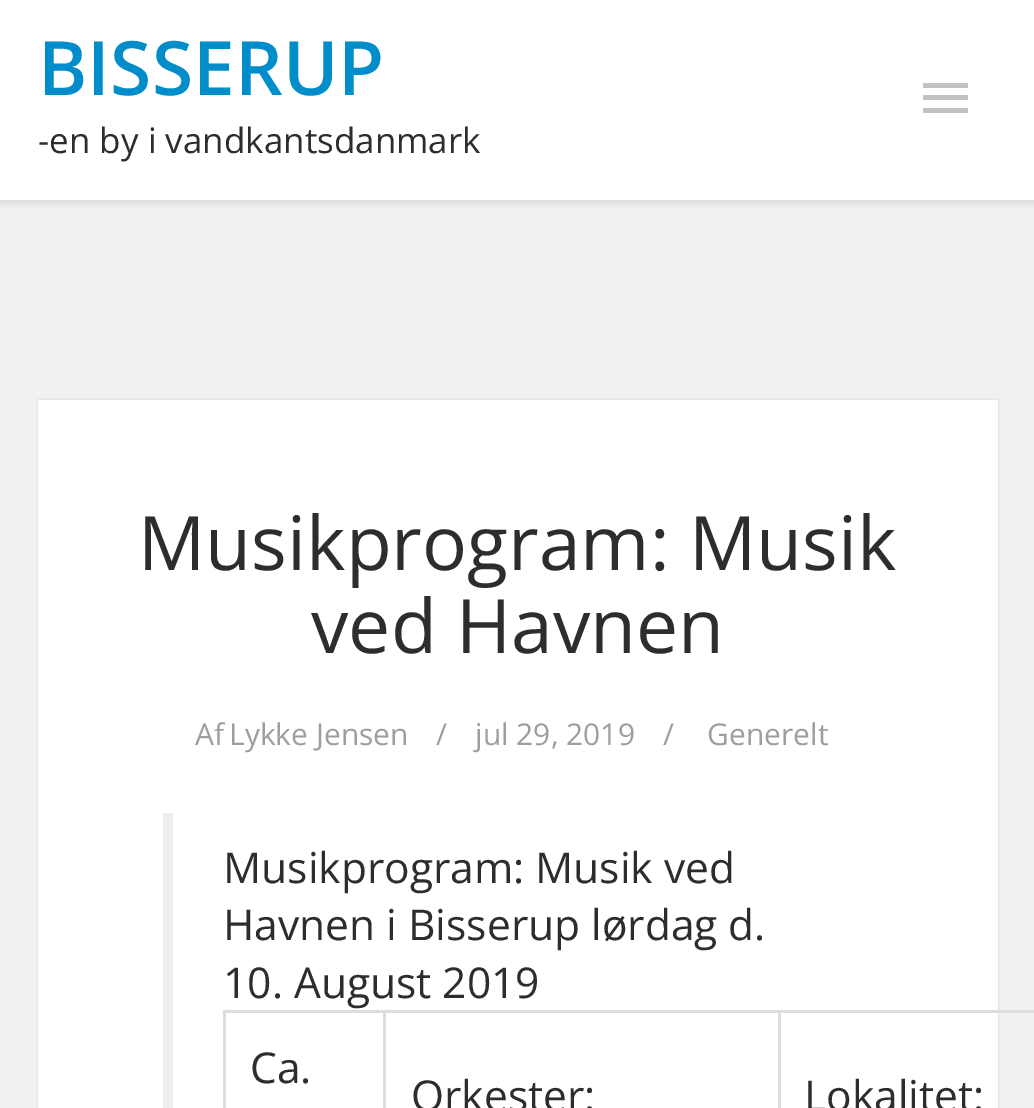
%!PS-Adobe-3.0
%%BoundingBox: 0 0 1034 1108
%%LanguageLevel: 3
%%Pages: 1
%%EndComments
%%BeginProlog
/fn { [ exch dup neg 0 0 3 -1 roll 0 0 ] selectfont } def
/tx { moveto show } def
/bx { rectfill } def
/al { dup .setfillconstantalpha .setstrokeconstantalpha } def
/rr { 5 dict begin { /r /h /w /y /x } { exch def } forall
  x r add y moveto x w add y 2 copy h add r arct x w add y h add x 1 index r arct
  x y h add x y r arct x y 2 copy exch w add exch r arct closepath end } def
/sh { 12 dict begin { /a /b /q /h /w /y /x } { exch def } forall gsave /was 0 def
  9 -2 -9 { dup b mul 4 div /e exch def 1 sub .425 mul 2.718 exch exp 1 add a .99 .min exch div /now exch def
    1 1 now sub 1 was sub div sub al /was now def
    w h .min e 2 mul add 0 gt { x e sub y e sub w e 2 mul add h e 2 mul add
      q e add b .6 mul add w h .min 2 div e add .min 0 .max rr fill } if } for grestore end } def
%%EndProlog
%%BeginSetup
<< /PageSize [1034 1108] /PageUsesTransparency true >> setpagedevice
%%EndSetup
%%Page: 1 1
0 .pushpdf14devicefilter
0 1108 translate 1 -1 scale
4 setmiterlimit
0.945 setgray
0 0 1034 1108 bx
0.745 setgray
0 3 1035 200 0 4 0.5 sh
1 setgray
0 0 1034 200 bx
/OpenSans-SemiBold 75 fn
0 0.553 0.788 setrgbcolor
(BISSERUP) 38 95 tx
/OpenSans-Regular 35 fn
0.176 setgray
(-en by i vandkantsdanmark) 38 153 tx
0.761 setgray
923 83 45 5 bx
923 95 45 5 bx
923 108 45 5 bx
0 setgray
38 400 960 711 0 1 0.15 sh
1 setgray
38 400 960 708 bx
/OpenSans-Regular 75 fn
0.176 setgray
(Musikprogram: Musik) 138 570 tx
(ved Havnen) 311 653 tx
/OpenSans-Regular 30 fn
0.62 setgray
(Af) 195 745 tx
(Lykke Jensen) 229 745 tx
(/) 436 745 tx
(jul 29, 2019) 475 745 tx
(/) 663 745 tx
(Generelt) 707 745 tx
0.933 setgray
163 813 10 295 bx
/OpenSans-Regular 42.5 fn
0.176 setgray
(Musikprogram: Musik ved) 223 883 tx
(Havnen i Bisserup lørdag d.) 223 940 tx
(10. August 2019) 223 998 tx
0.867 setgray
223 1010 811 3 bx
223 1010 3 98 bx
0.176 setgray
(Ca.) 250 1083 tx
0.867 setgray
383 1010 3 98 bx
0.176 setgray
(Orkester:) 411 1111 tx
0.867 setgray
778 1010 3 98 bx
0.176 setgray
(Lokalitet:) 804 1111 tx
.poppdf14devicefilter showpage
%%EOF
